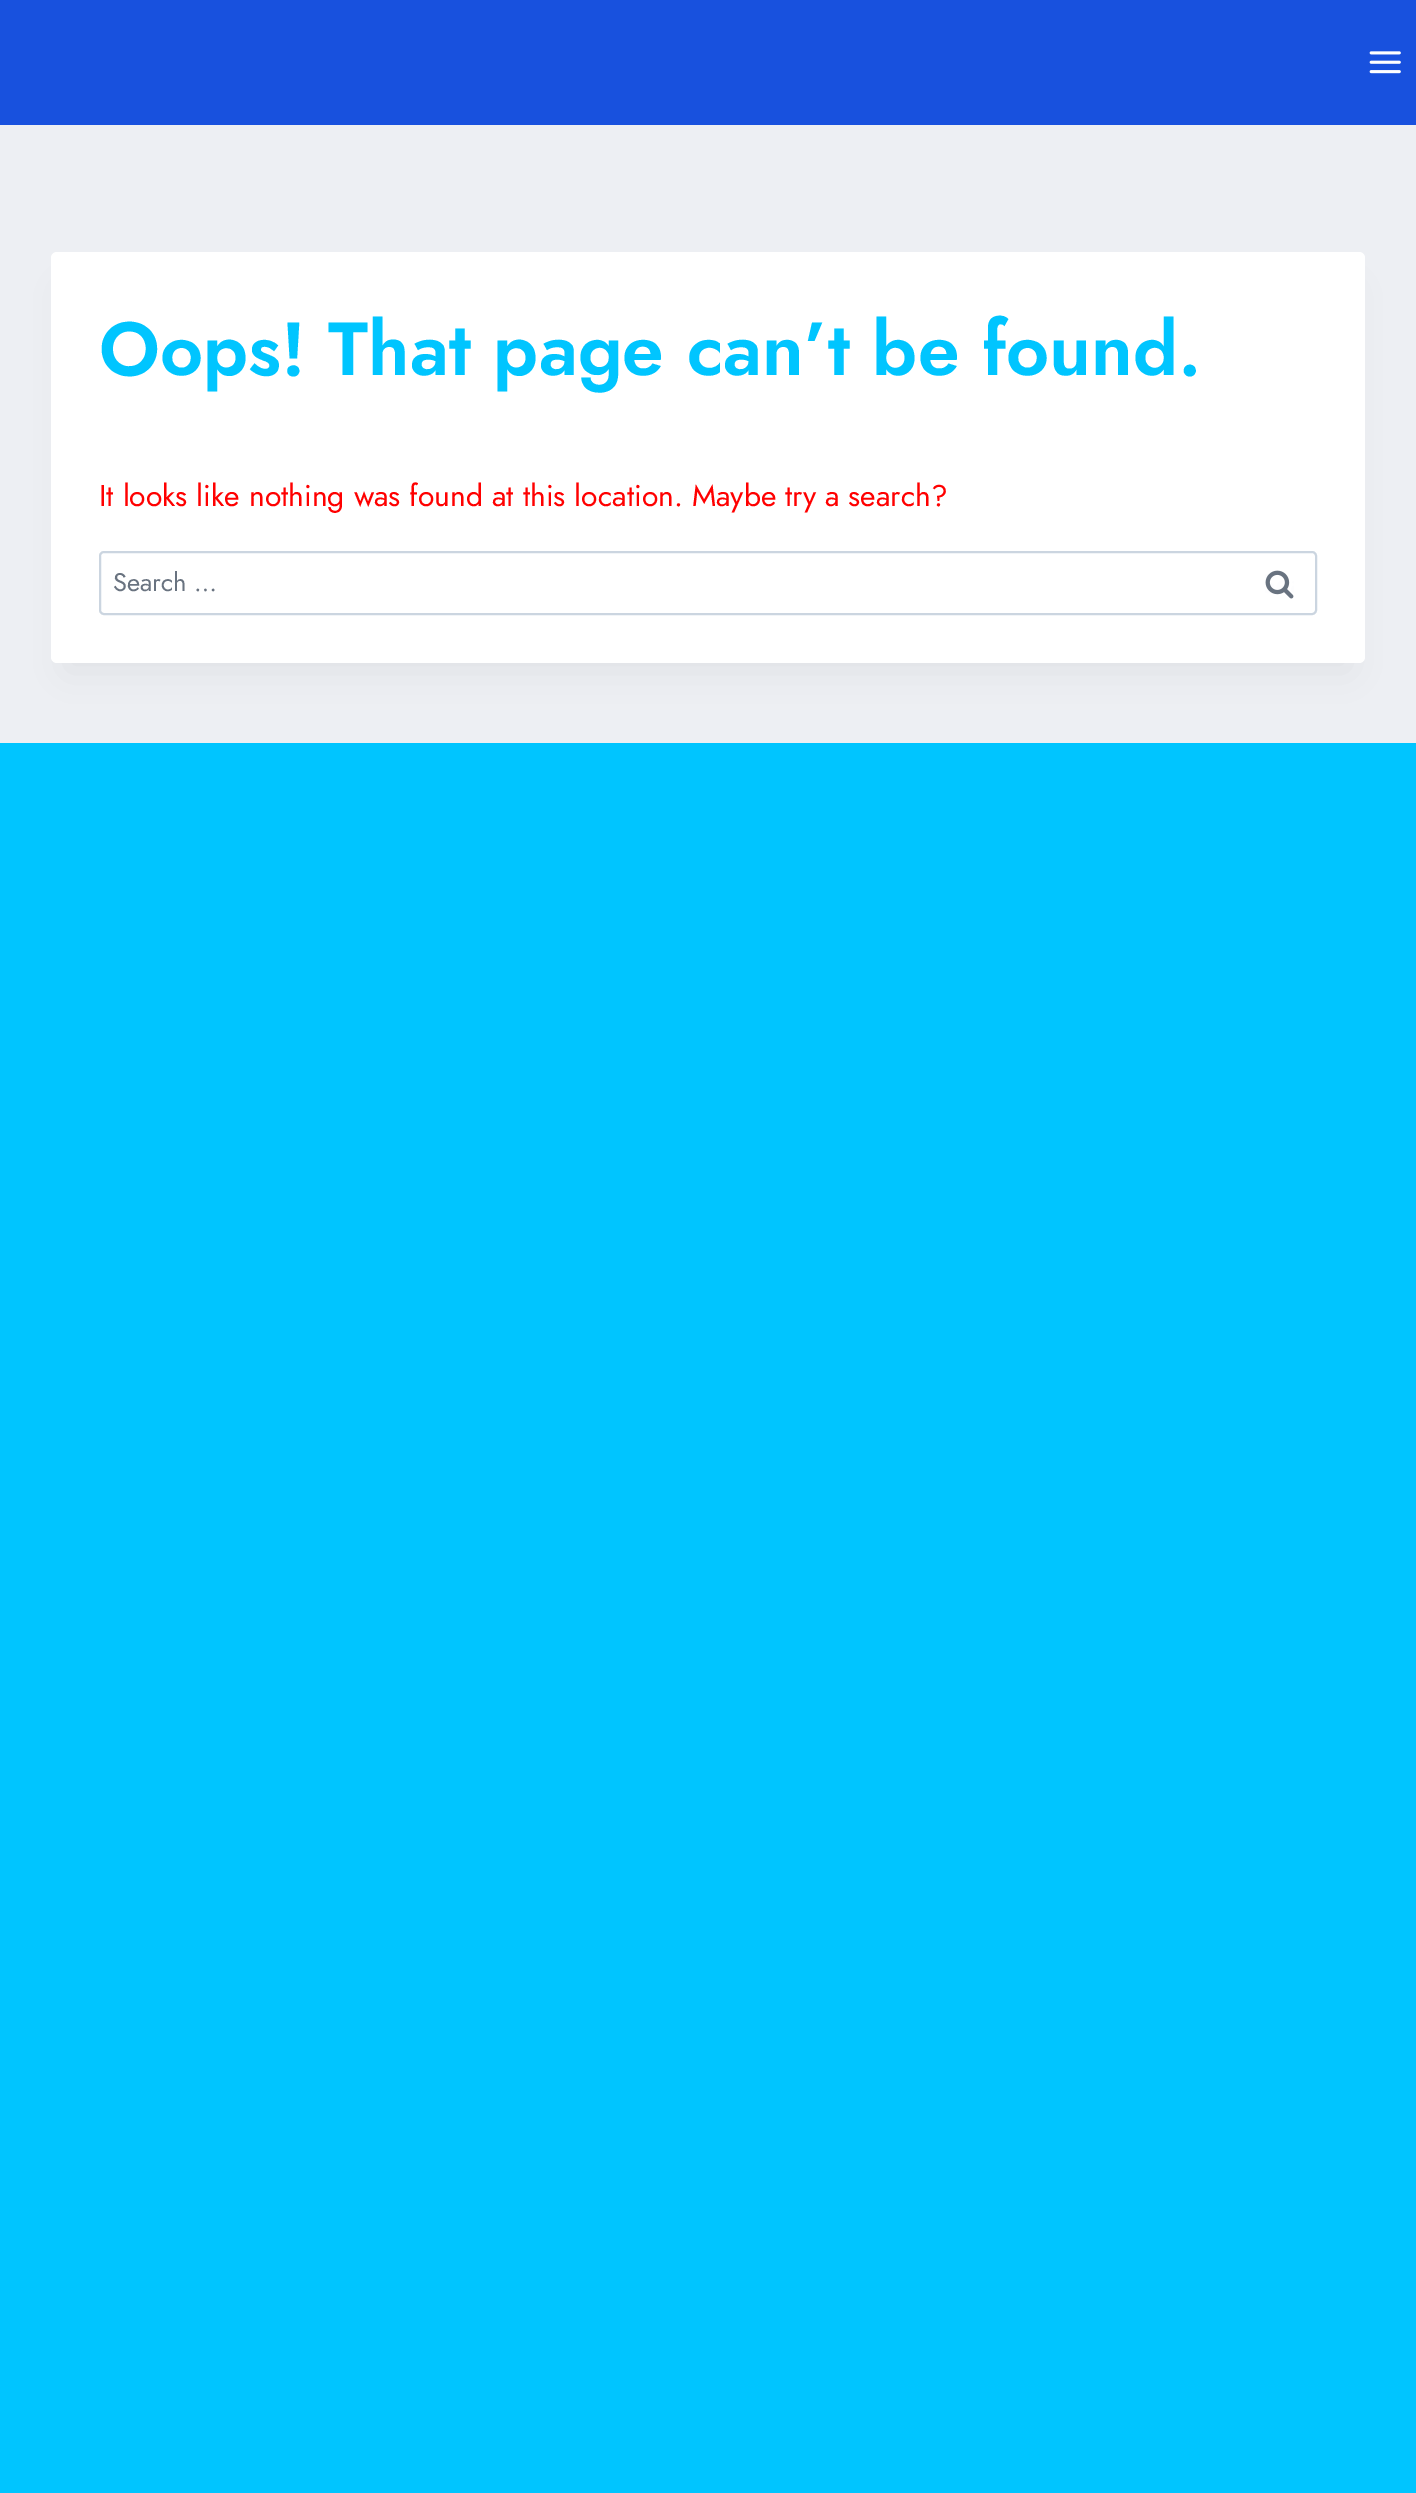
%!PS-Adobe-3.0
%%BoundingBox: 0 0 1416 2493
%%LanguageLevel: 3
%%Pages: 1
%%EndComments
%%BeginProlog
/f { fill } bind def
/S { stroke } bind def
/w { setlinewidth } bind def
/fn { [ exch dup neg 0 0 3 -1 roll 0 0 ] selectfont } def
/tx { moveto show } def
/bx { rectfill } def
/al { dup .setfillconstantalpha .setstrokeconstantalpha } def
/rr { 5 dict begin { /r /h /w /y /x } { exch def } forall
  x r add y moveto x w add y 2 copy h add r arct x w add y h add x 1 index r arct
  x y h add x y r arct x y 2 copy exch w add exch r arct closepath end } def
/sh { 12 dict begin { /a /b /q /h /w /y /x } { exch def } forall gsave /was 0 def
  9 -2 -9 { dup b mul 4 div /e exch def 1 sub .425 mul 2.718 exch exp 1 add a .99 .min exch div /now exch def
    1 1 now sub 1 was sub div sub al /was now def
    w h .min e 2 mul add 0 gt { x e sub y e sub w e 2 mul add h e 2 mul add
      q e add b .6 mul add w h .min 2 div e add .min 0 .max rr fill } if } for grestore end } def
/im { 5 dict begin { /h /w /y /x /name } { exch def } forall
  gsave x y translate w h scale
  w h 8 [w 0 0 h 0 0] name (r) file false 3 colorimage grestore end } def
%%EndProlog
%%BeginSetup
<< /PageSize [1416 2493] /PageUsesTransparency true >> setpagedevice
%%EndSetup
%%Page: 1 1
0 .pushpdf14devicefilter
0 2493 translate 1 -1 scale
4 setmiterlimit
0.929 0.937 0.953 setrgbcolor
0 0 1416 2493 bx
0.094 0.318 0.871 setrgbcolor
0 0 1416 125 bx
(image0.raw) 1369 51 32 23 im
0 setgray
66 290 1284 381 0 19 0.05 sh
1 setgray
51 252 1314 411 6 rr f
/Jost-SemiBold 75 fn
0 0.773 1 setrgbcolor
(Oops! That page can’t be found.) 99 375 tx
/Jost-Regular 30 fn
1 0 0 setrgbcolor
(It looks like nothing was found at this location. Maybe try a search?) 99 506 tx
0.796 0.835 0.878 setrgbcolor
2 w
100 552 1216 62 4 rr S
/Jost-Regular 25.5 fn
0.412 0.451 0.502 setrgbcolor
(Search …) 113 591 tx
(image1.raw) 1265 570 29 29 im
0 0.773 1 setrgbcolor
0 743 1416 1750 bx
.poppdf14devicefilter showpage
%%EOF
